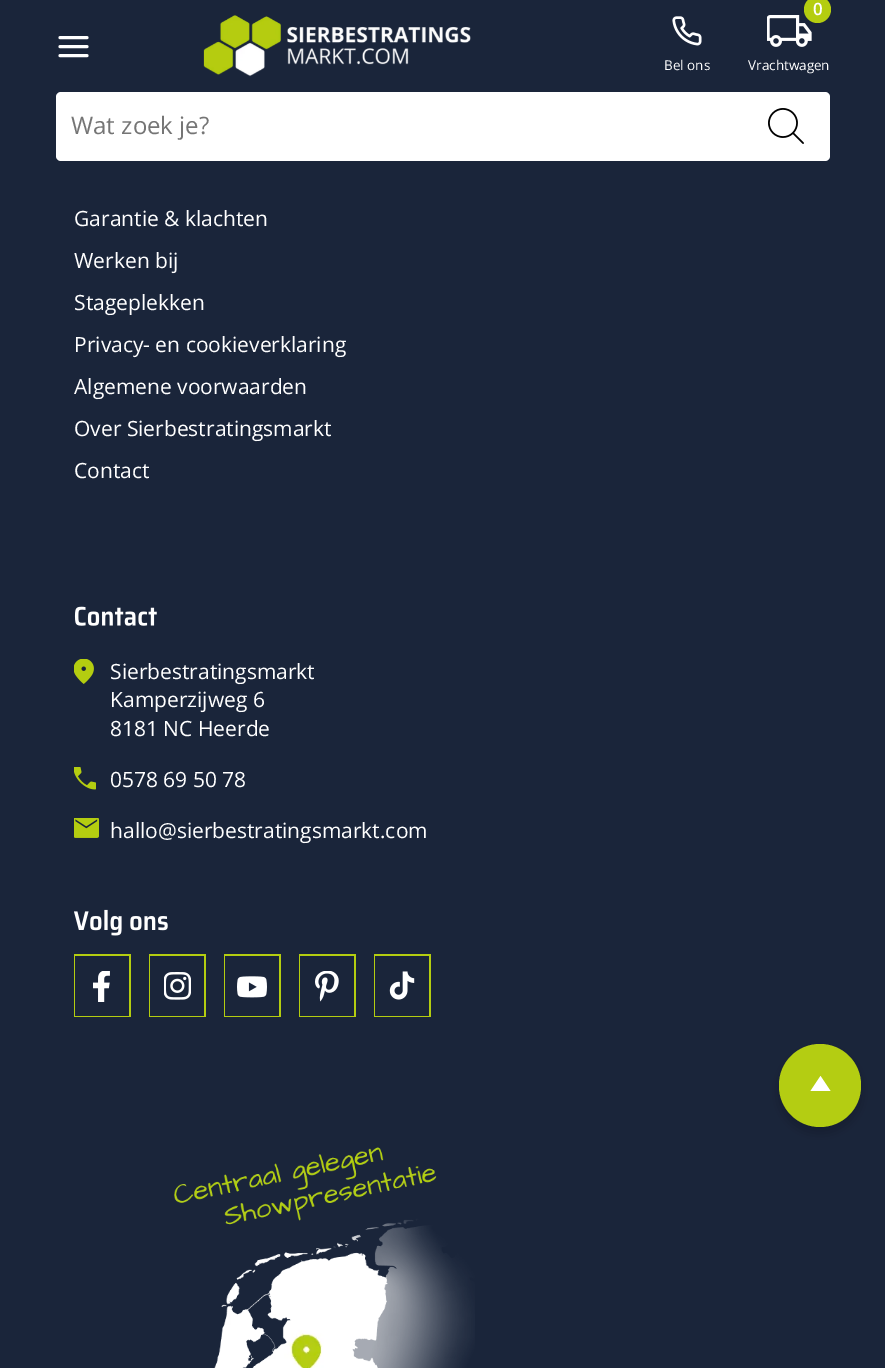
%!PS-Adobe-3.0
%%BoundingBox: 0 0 885 1368
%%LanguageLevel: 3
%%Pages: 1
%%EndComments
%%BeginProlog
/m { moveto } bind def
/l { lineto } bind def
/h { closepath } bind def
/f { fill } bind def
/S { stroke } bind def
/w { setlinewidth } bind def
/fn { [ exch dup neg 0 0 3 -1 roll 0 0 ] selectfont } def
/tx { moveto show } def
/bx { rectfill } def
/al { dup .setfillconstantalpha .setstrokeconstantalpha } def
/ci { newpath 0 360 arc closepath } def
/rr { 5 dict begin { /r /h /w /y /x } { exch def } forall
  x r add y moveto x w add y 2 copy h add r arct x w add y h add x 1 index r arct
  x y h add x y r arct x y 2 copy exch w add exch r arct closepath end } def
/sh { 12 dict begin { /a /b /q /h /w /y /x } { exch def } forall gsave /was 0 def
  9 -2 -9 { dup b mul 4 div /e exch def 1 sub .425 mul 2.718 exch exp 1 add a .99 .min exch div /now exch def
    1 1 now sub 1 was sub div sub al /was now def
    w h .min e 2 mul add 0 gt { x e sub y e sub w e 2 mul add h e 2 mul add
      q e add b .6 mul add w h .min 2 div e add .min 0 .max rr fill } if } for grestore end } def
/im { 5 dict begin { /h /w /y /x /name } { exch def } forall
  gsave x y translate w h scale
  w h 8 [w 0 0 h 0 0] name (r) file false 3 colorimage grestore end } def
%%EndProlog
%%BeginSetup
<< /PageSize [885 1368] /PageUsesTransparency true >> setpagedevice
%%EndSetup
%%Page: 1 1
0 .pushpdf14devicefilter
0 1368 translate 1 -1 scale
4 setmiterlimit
0.102 0.145 0.227 setrgbcolor
0 0 885 1368 bx
1 setgray
3 w
1 setlinecap
1 setlinejoin
60 46.5 m 87 46.5 l 60 37.5 m 87 37.5 l 60 55.5 m 87 55.5 l S
(image0.raw) 203 15 268 62 im
(image1.raw) 672 16 30 30 im
/OpenSans-Regular 13.5 fn
(Bel ons) 664 70 tx
(image2.raw) 767 15 45 32 im
0.706 0.804 0.063 setrgbcolor
817.5 9.5 13.5 ci f
/OpenSans-SemiBold 17 fn
1 setgray
(0) 813 15 tx
/OpenSans-Regular 13.5 fn
(Vrachtwagen) 748 70 tx
56 92 774 69 5 rr f
(image3.raw) 768 108 36 36 im
/OpenSans-Regular 24 fn
0.459 setgray
(Wat zoek je?) 71 134 tx
/OpenSans-Regular 21 fn
1 setgray
(Garantie & klachten) 74 226 tx
(Werken bij) 74 268 tx
(Stageplekken) 74 310 tx
(Privacy- en cookieverklaring) 74 352 tx
(Algemene voorwaarden) 74 394 tx
(Over Sierbestratingsmarkt) 74 436 tx
(Contact) 74 478 tx
(image4.raw) 74 606 83 20 im
(image5.raw) 74 659 20 25 im
(Sierbestratingsmarkt) 110 679 tx
(Kamperzijweg 6) 110 707 tx
(8181 NC Heerde) 110 736 tx
(image6.raw) 74 767 22 23 im
(0578 69 50 78) 110 787 tx
(image7.raw) 74 818 25 20 im
(hallo@sierbestratingsmarkt.com) 110 838 tx
(image8.raw) 74 909 94 27 im
0.706 0.804 0.063 setrgbcolor
74 954 57 63 bx
0.102 0.145 0.227 setrgbcolor
75 956 54 60 bx
(image9.raw) 93 971 17 31 im
0.706 0.804 0.063 setrgbcolor
149 954 57 63 bx
0.102 0.145 0.227 setrgbcolor
150 956 54 60 bx
(image10.raw) 164 972 27 28 im
0.706 0.804 0.063 setrgbcolor
224 954 57 63 bx
0.102 0.145 0.227 setrgbcolor
225 956 54 60 bx
(image11.raw) 237 976 30 22 im
0.706 0.804 0.063 setrgbcolor
299 954 57 63 bx
0.102 0.145 0.227 setrgbcolor
300 956 54 60 bx
(image12.raw) 315 971 24 31 im
0.706 0.804 0.063 setrgbcolor
374 954 57 63 bx
0.102 0.145 0.227 setrgbcolor
375 956 54 60 bx
(image13.raw) 389 971 26 29 im
(image14.raw) 174 1147 301 221 im
0 setgray
779 1050 82 83 41 6 0.2 sh
0.706 0.804 0.071 setrgbcolor
779 1044 82 83 41 rr f
1 setgray
820.5 1076 m 830.5 1091 l 810.5 1091 l h f
.poppdf14devicefilter showpage
%%EOF
